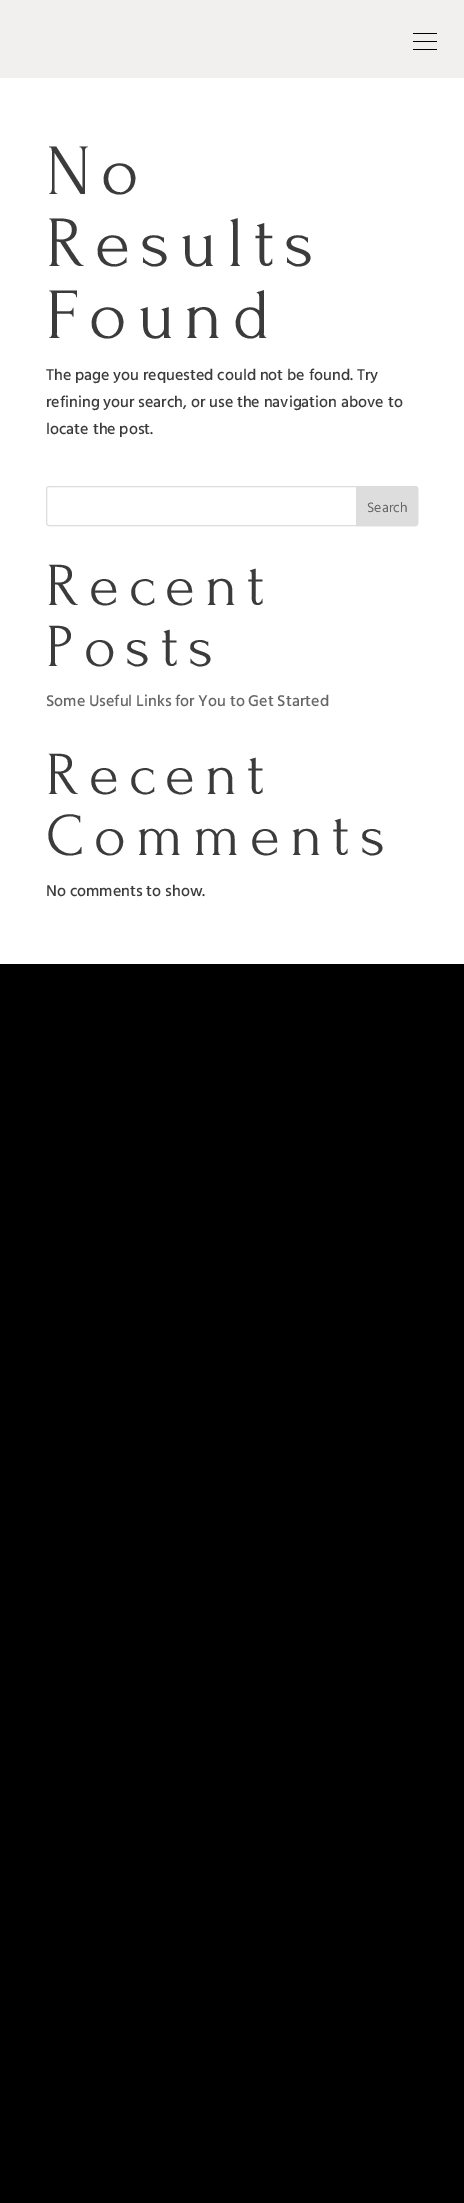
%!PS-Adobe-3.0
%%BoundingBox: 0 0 464 2203
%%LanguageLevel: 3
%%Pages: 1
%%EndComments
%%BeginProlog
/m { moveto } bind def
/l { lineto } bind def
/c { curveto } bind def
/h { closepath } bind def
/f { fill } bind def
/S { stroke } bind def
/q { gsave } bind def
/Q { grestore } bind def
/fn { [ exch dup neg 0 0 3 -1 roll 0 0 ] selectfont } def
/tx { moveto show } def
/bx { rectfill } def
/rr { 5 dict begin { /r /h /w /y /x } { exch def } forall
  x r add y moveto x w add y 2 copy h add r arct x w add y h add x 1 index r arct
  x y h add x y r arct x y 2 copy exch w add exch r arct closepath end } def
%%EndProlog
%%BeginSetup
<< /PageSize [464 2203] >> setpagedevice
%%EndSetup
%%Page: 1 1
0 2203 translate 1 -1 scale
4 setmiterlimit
0.945 0.941 0.933 setrgbcolor
0 0 464 2203 bx
0 setgray
413 41 24 1 bx
413 33 24 1 bx
413 49 24 1 bx
1 setgray
0 78 464 886 bx
/Forum-Regular 72 fn
0.231 setgray
46 194 m 10 0 (No) ashow
46 266 m 10 0 (Results) ashow
46 338 m 10 0 (Found) ashow
/HindSiliguri-Medium 16 fn
(The page you requested could not be found. Try) 46 380 tx
(refining your search, or use the navigation above to) 46 407 tx
(locate the post.) 46 434 tx
0.867 setgray
46.5 486.5 371 39 2.5 rr S
356.5 486.5 m 415 486.5 l 416.5 486.5 417.5 487.5 417.5 489 c 417.5 523 l 417.5 524.5 416.5 525.5 415 525.5 c 356.5 525.5 l h q f Q
S
/HindSiliguri-Regular 14 fn
0.4 setgray
(Search) 367 512 tx
/Forum-Regular 61 fn
0.231 setgray
46 605 m 10 0 (Recent) ashow
46 666 m 10 0 (Posts) ashow
/HindSiliguri-Medium 16 fn
0.4 setgray
(Some Useful Links for You to Get Started) 46 706 tx
/Forum-Regular 61 fn
0.231 setgray
46 794 m 10 0 (Recent) ashow
46 855 m 10 0 (Comments) ashow
/HindSiliguri-Medium 16 fn
(No comments to show.) 46 896 tx
0 setgray
0 964 464 1239 bx
showpage
%%EOF
